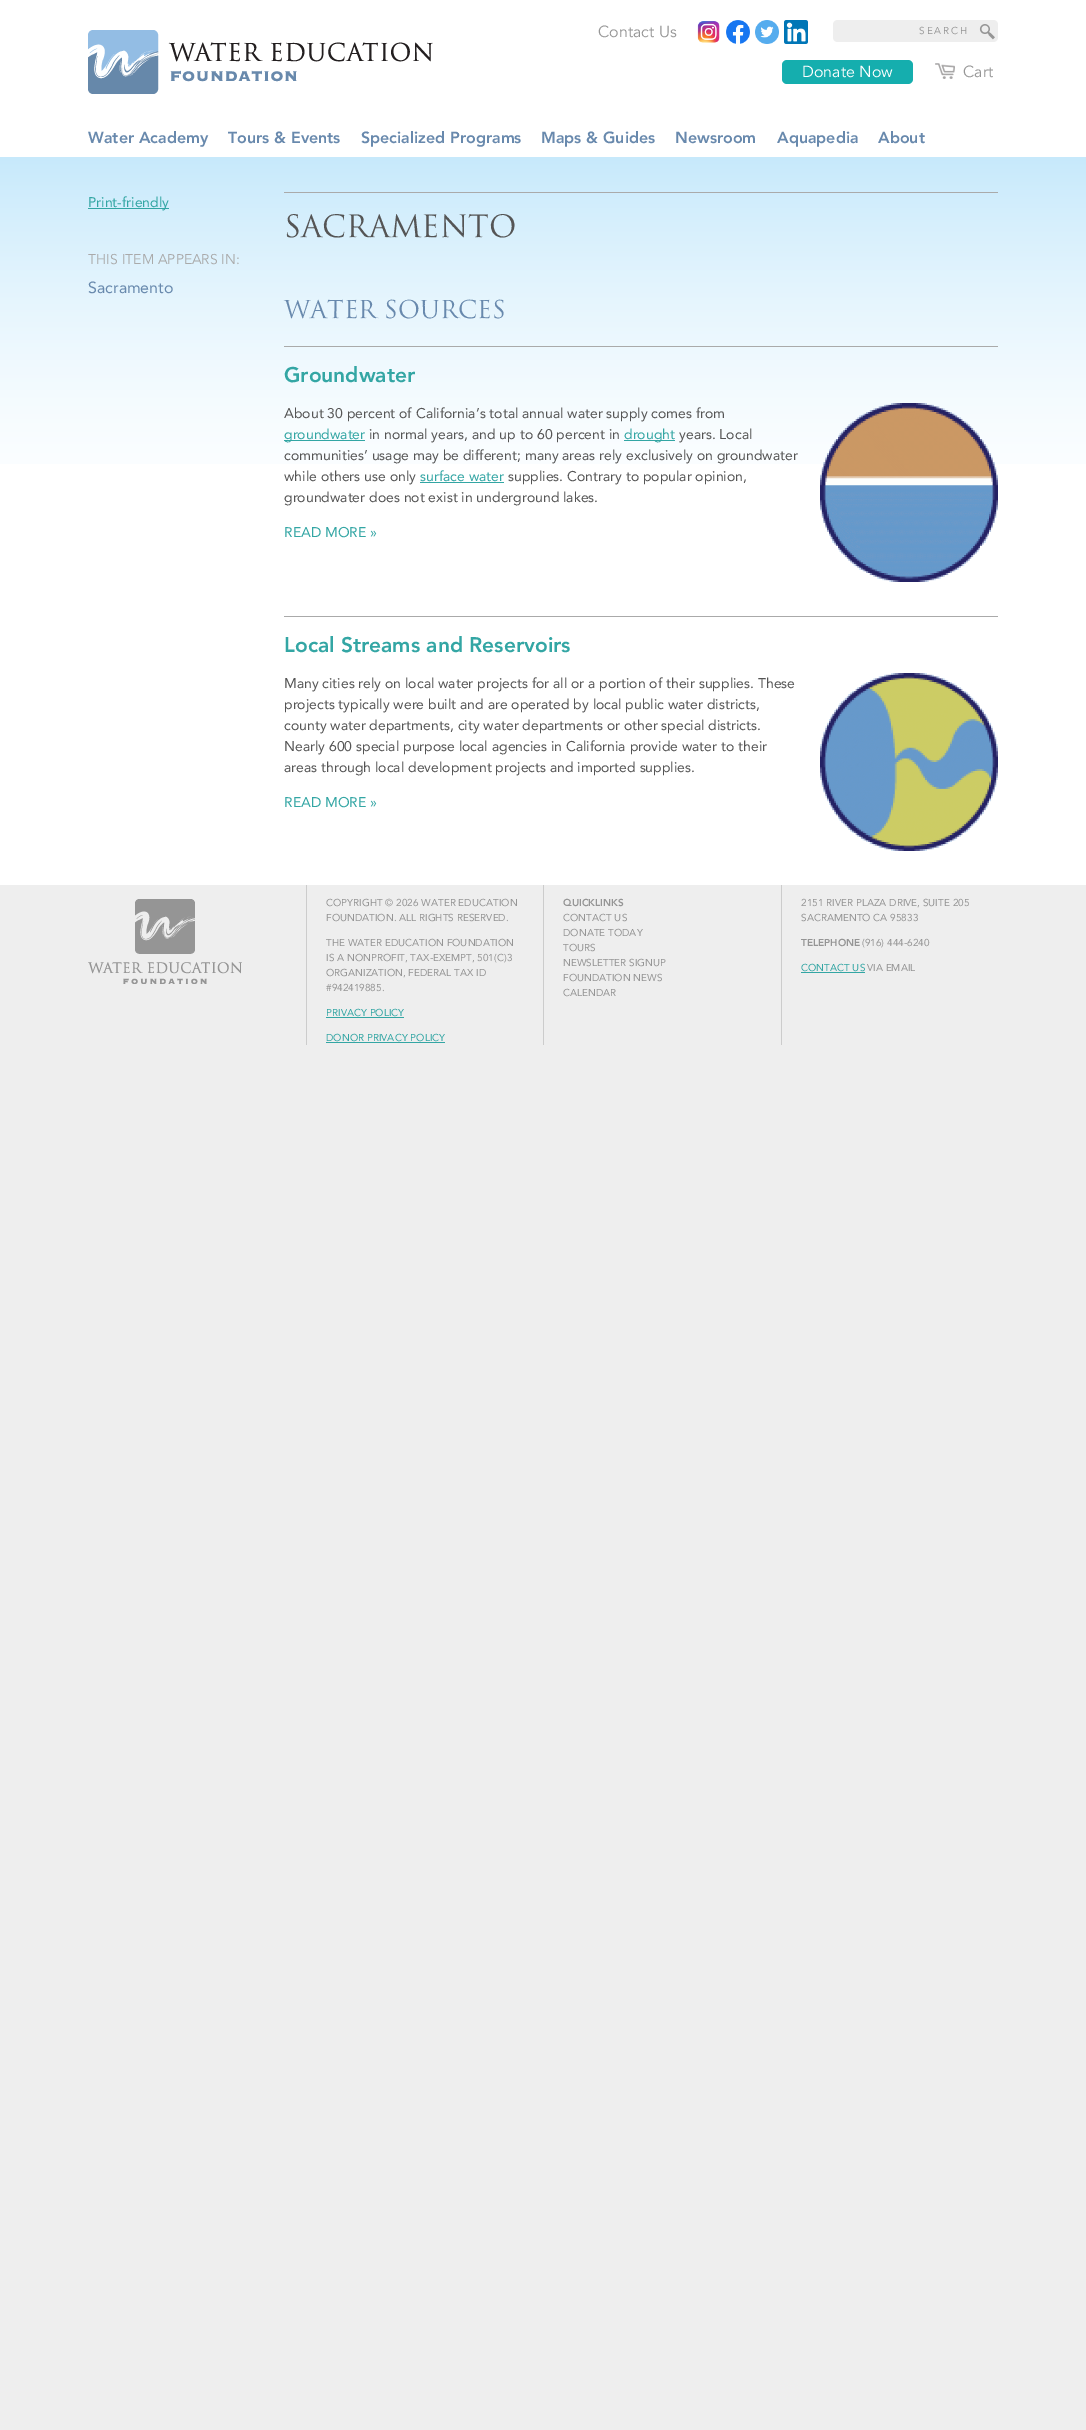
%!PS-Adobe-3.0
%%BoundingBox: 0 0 1086 2430
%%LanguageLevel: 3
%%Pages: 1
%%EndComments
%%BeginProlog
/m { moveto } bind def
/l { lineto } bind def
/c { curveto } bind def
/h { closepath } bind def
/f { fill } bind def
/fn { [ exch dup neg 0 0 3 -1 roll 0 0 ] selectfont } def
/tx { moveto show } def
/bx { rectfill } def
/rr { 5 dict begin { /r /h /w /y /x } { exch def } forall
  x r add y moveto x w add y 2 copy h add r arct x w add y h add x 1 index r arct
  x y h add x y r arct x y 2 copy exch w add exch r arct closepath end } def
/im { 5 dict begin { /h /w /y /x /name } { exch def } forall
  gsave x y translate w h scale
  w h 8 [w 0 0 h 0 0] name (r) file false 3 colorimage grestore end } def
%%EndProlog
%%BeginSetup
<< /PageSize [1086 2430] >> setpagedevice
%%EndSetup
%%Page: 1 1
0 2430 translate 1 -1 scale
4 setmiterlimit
0.933 setgray
0 0 1086 2430 bx
1 setgray
0 0 1086 885 bx
/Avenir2-Regular 16 fn
0.584 setgray
(Contact Us) 598 37 tx
(image0.raw) 697 21 23 22 im
(image1.raw) 726 20 24 24 im
(image2.raw) 755 20 24 24 im
(image3.raw) 784 20 24 24 im
0.082 0.682 0.682 setrgbcolor
782 60 131 24 5 rr f
1 setgray
(Donate Now) 802 77 tx
(image4.raw) 935 63 20 16 im
0.584 setgray
(Cart) 963 77 tx
(image5.raw) 88 30 345 64 im
0.933 setgray
838 20 m 979 20 l 979 42 l 838 42 l 835 42 833 40 833 37 c 833 25 l 833 22 835 20 838 20 c h f
/Avenir2-Regular 10 fn
0.584 setgray
919 34 m 2 0 (SEARCH) ashow
0.933 setgray
978 20 m 993 20 l 996 20 998 22 998 25 c 998 37 l 998 40 996 42 993 42 c 978 42 l h f
(image6.raw) 979 24 16 16 im
/Avenir-Black 16 fn
0.408 0.537 0.678 setrgbcolor
(Water Academy) 88 143 tx
(Tours & Events) 228 143 tx
(Specialized Programs) 361 143 tx
(Maps & Guides) 541 143 tx
(Newsroom) 675 143 tx
(Aquapedia) 777 143 tx
(About) 878 143 tx
(image7.raw) 0 157 1086 307 im
0.2 0.651 0.643 setrgbcolor
88 208 81 1 bx
/Avenir-Regular 14 fn
(Print-friendly) 88 207 tx
/Avenir2-Regular 14 fn
0.667 setgray
(THIS ITEM APPEARS IN:) 88 264 tx
/Avenir-Regular 16 fn
0.408 0.537 0.678 setrgbcolor
(Sacramento) 88 293 tx
0.667 setgray
284 192 714 1 bx
/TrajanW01-Regular 30 fn
0.333 setgray
(SACRAMENTO) 284 237 tx
/TrajanW01-Regular 24 fn
0.408 0.537 0.678 setrgbcolor
(WATER SOURCES) 284 318 tx
0.667 setgray
284 346 714 1 bx
/Avenir-Black 21 fn
0.2 0.651 0.643 setrgbcolor
(Groundwater) 284 382 tx
/Avenir-Regular 14 fn
0.333 setgray
(About 30 percent of California’s total annual water supply comes from) 284 418 tx
0.2 0.651 0.643 setrgbcolor
284 440 81 1 bx
(groundwater) 284 439 tx
0.333 setgray
(in normal years, and up to 60 percent in) 369 439 tx
0.2 0.651 0.643 setrgbcolor
624 440 51 1 bx
(drought) 624 439 tx
0.333 setgray
(years. Local) 679 439 tx
(communities’ usage may be different; many areas rely exclusively on groundwater) 284 460 tx
(while others use only) 284 481 tx
0.2 0.651 0.643 setrgbcolor
(surface water) 420 481 tx
420 482 84 1 bx
0.333 setgray
(supplies. Contrary to popular opinion,) 508 481 tx
(groundwater does not exist in underground lakes.) 284 502 tx
(image8.raw) 820 403 178 179 im
0.2 0.651 0.643 setrgbcolor
(READ MORE) 284 537 tx
(») 370 537 tx
0.667 setgray
284 616 714 1 bx
/Avenir-Black 21 fn
0.2 0.651 0.643 setrgbcolor
(Local Streams and Reservoirs) 284 652 tx
/Avenir-Regular 14 fn
0.333 setgray
(Many cities rely on local water projects for all or a portion of their supplies. These) 284 688 tx
(projects typically were built and are operated by local public water districts,) 284 709 tx
(county water departments, city water departments or other special districts.) 284 730 tx
(Nearly 600 special purpose local agencies in California provide water to their) 284 751 tx
(areas through local development projects and imported supplies.) 284 772 tx
(image9.raw) 820 673 178 178 im
0.2 0.651 0.643 setrgbcolor
(READ MORE) 284 807 tx
(») 370 807 tx
(image10.raw) 88 899 154 85 im
0.8 setgray
306 885 1 160 bx
/Avenir-Regular 10 fn
0.584 setgray
(COPYRIGHT © 2026 WATER EDUCATION) 326 906 tx
(FOUNDATION. ALL RIGHTS RESERVED.) 326 921 tx
(THE WATER EDUCATION FOUNDATION) 326 946 tx
(IS A NONPROFIT, TAX-EXEMPT, 501\(C\)3) 326 961 tx
(ORGANIZATION, FEDERAL TAX ID) 326 976 tx
(#942419885.) 326 991 tx
0.2 0.651 0.643 setrgbcolor
(PRIVACY POLICY) 326 1016 tx
326 1017 78 1 bx
(DONOR PRIVACY POLICY) 326 1041 tx
326 1042 119 1 bx
0.8 setgray
543 885 1 160 bx
781 885 1 160 bx
0.584 setgray
(2151 RIVER PLAZA DRIVE, SUITE 205) 801 906 tx
(SACRAMENTO CA 95833) 801 921 tx
/Avenir-Black 10 fn
(TELEPHONE) 801 946 tx
/Avenir-Regular 10 fn
(\(916\) 444-6240) 862 946 tx
0.2 0.651 0.643 setrgbcolor
(CONTACT US) 801 971 tx
801 972 64 1 bx
0.584 setgray
(VIA EMAIL) 867 971 tx
/Avenir-Black 10 fn
(QUICKLINKS) 563 906 tx
/Avenir-Regular 10 fn
(CONTACT US) 563 921 tx
(DONATE TODAY) 563 936 tx
(TOURS) 563 951 tx
(NEWSLETTER SIGNUP) 563 966 tx
(FOUNDATION NEWS) 563 981 tx
(CALENDAR) 563 996 tx
showpage
%%EOF
